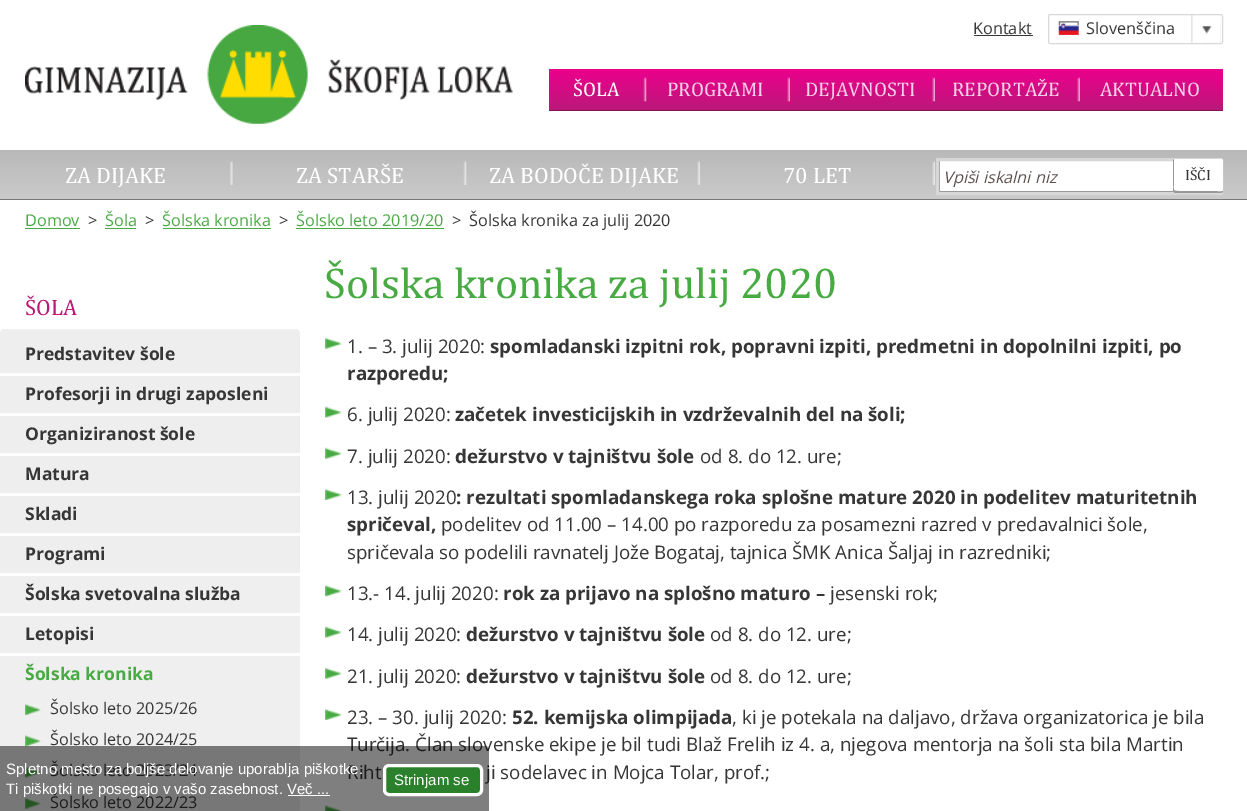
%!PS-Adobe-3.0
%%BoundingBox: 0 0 1247 811
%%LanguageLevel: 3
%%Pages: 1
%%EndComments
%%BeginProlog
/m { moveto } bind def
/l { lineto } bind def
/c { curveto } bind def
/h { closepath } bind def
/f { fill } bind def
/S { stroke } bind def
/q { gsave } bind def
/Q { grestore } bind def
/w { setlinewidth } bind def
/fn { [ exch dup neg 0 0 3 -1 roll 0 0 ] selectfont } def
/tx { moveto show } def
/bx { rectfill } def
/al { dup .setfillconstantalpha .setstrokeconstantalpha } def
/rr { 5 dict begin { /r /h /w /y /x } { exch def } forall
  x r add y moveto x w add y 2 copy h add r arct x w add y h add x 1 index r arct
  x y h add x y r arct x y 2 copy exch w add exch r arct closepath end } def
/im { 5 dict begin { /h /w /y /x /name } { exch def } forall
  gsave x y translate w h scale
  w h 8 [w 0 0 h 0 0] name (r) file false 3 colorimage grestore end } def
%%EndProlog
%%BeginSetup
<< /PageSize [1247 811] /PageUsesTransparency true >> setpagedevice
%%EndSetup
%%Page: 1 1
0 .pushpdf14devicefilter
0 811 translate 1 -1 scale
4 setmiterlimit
1 setgray
0 0 1247 811 bx
(image0.raw) 25 25 488 99 im
/OpenSans-Regular 16.25 fn
0.212 setgray
(Kontakt) 973 34 tx
974 35 59 1 bx
(image1.raw) 1191 15 30 28 im
0.847 setgray
1048.5 14.5 174 29 2 rr S
(image2.raw) 1058 21 21 14 im
0.212 setgray
(Slovenščina) 1086 34 tx
q 549 69 m 1223 69 l 1223 110 l 549 110 l h clip newpath
<< /ShadingType 2 /ColorSpace /DeviceRGB /Coords [886 69 886 111] /Extend [true true] /Function << /FunctionType 2 /Domain [0 1] /C0 [0.925 0 0.549] /C1 [0.729 0.098 0.471] /N 1 >> >> shfill Q
0.514 0.071 0.329 setrgbcolor
549 110 674 1 bx
/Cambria-Regular 20 fn
1 setgray
(ŠOLA) 573 96 tx
(image3.raw) 643 77 4 25 im
0.969 0.82 0.91 setrgbcolor
(PROGRAMI) 667 96 tx
(image4.raw) 787 77 3 25 im
(DEJAVNOSTI) 805 96 tx
(image4.raw) 932 77 3 25 im
(REPORTAŽE) 952 96 tx
(image4.raw) 1077 77 3 25 im
(AKTUALNO) 1100 96 tx
q 0 150 m 1247 150 l 1247 199 l 0 199 l h clip newpath
<< /ShadingType 2 /ColorSpace /DeviceRGB /Coords [624 150 624 200] /Extend [true true] /Function << /FunctionType 2 /Domain [0 1] /C0 [0.725 0.725 0.725] /C1 [0.792 0.792 0.792] /N 1 >> >> shfill Q
0.475 setgray
0 199 1247 1 bx
/Cambria-Regular 22.5 fn
1 setgray
(ZA DIJAKE) 65 183 tx
(image5.raw) 230 161 3 24 im
(ZA STARŠE) 296 183 tx
(image6.raw) 463 161 4 24 im
(ZA BODOČE DIJAKE) 489 183 tx
(image7.raw) 697 161 3 24 im
(70 LET) 783 183 tx
(image7.raw) 932 161 3 24 im
936 158 287 37 2.5 rr f
q
939 160 281 33 rectclip
0.6 setgray
815 36 m 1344 36 l 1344 316 l 815 316 l h 940 159 m 1221 159 l 1221 191 l 940 191 l h eofill
Q
0.843 setgray
3 w
937.5 159.5 284 34 1 rr S
/OpenSans-Italic 16.25 fn
0.373 0.322 0.325 setrgbcolor
(Vpiši iskalni niz) 943 183 tx
1 setgray
1173 159 50 34 2.5 rr f
0.4 al
0 setgray
1174 159 m 1173 160 1173 161 1173 162 c 1173 190 l 1173 192 1174 193 1176 193 c 1220 193 l 1222 193 1223 192 1223 191 c 1220 192 1217 191 1214 191 c 1184 191 l 1171 191 1174 192 1174 179 c h f
/Cambria-Regular 15 fn
1 al
0.212 setgray
(IŠČI) 1185 180 tx
/OpenSans-Regular 16.25 fn
0.282 0.667 0.263 setrgbcolor
(Domov) 25 226 tx
25 228 55 1 bx
0.212 setgray
(>) 88 226 tx
0.282 0.667 0.263 setrgbcolor
(Šola) 105 226 tx
105 228 31 1 bx
0.212 setgray
(>) 145 226 tx
0.282 0.667 0.263 setrgbcolor
(Šolska kronika) 162 226 tx
163 228 108 1 bx
0.212 setgray
(>) 279 226 tx
0.282 0.667 0.263 setrgbcolor
(Šolsko leto 2019/20) 296 226 tx
296 228 148 1 bx
0.212 setgray
(>) 452 226 tx
(Šolska kronika za julij 2020) 469 226 tx
/Cambria-Regular 22.5 fn
0.729 0.098 0.471 setrgbcolor
(ŠOLA) 25 315 tx
q 0 329 300 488 6 rr clip newpath
<< /ShadingType 2 /ColorSpace /DeviceRGB /Coords [150 329 150 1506] /Extend [true true] /Function << /FunctionType 2 /Domain [0 1] /C0 [0.933 0.933 0.933] /C1 [0.957 0.957 0.957] /N 1 >> >> shfill Q
1 setgray
0 373 300 3 bx
/OpenSans-Bold 17.5 fn
0.212 setgray
(Predstavitev šole) 25 360 tx
1 setgray
0 413 300 3 bx
0.212 setgray
(Profesorji in drugi zaposleni) 25 400 tx
1 setgray
0 453 300 3 bx
0.212 setgray
(Organiziranost šole) 25 440 tx
1 setgray
0 493 300 3 bx
0.212 setgray
(Matura) 25 480 tx
1 setgray
0 533 300 3 bx
0.212 setgray
(Skladi) 25 520 tx
1 setgray
0 573 300 3 bx
0.212 setgray
(Programi) 25 560 tx
1 setgray
0 613 300 3 bx
0.212 setgray
(Šolska svetovalna služba) 25 600 tx
1 setgray
0 653 300 3 bx
0.212 setgray
(Letopisi) 25 640 tx
0.282 0.667 0.263 setrgbcolor
(Šolska kronika) 25 680 tx
(image8.raw) 25 703 17 12 im
/OpenSans-Regular 16.25 fn
0.212 setgray
(Šolsko leto 2025/26) 50 714 tx
(image9.raw) 25 735 17 12 im
(Šolsko leto 2024/25) 50 745 tx
(image10.raw) 25 766 17 12 im
(Šolsko leto 2023/24) 50 776 tx
(image11.raw) 25 797 17 12 im
(Šolsko leto 2022/23) 50 808 tx
/Cambria-Regular 43.75 fn
0.282 0.667 0.263 setrgbcolor
(Šolska kronika za julij 2020) 324 298 tx
(image12.raw) 325 337 19 12 im
/OpenSans-Regular 18.75 fn
0.212 setgray
(1. – 3. julij 2020:) 347 353 tx
/OpenSans-Bold 18.75 fn
(spomladanski izpitni rok, popravni izpiti, predmetni in dopolnilni izpiti, po) 490 353 tx
(razporedu;) 347 380 tx
(image13.raw) 325 406 19 12 im
/OpenSans-Regular 18.75 fn
(6. julij 2020:) 347 421 tx
/OpenSans-Bold 18.75 fn
(začetek investicijskih in vzdrževalnih del na šoli;) 455 421 tx
(image12.raw) 325 447 19 12 im
/OpenSans-Regular 18.75 fn
(7. julij 2020:) 347 463 tx
/OpenSans-Bold 18.75 fn
(dežurstvo v tajništvu šole) 455 463 tx
/OpenSans-Regular 18.75 fn
(od 8. do 12. ure;) 700 463 tx
(image14.raw) 325 488 19 12 im
(13. julij 2020) 347 504 tx
/OpenSans-Bold 18.75 fn
(: rezultati spomladanskega roka splošne mature 2020 in podelitev maturitetnih) 456 504 tx
(spričeval,) 347 531 tx
/OpenSans-Regular 18.75 fn
(podelitev od 11.00 – 14.00 po razporedu za posamezni razred v predavalnici šole,) 441 531 tx
(spričevala so podelili ravnatelj Jože Bogataj, tajnica ŠMK Anica Šaljaj in razredniki;) 347 559 tx
(image15.raw) 325 585 19 12 im
(13.- 14. julij 2020:) 347 600 tx
/OpenSans-Bold 18.75 fn
(rok za prijavo na splošno maturo –) 503 600 tx
/OpenSans-Regular 18.75 fn
(jesenski rok;) 830 600 tx
(image13.raw) 325 626 19 12 im
(14. julij 2020:) 347 641 tx
/OpenSans-Bold 18.75 fn
(dežurstvo v tajništvu šole) 466 641 tx
/OpenSans-Regular 18.75 fn
(od 8. do 12. ure;) 710 641 tx
(image12.raw) 325 667 19 12 im
(21. julij 2020:) 347 683 tx
/OpenSans-Bold 18.75 fn
(dežurstvo v tajništvu šole) 466 683 tx
/OpenSans-Regular 18.75 fn
(od 8. do 12. ure;) 710 683 tx
(image14.raw) 325 708 19 12 im
(23. – 30. julij 2020:) 347 724 tx
/OpenSans-Bold 18.75 fn
(52. kemijska olimpijada) 512 724 tx
/OpenSans-Regular 18.75 fn
(, ki je potekala na daljavo, država organizatorica je bila) 732 724 tx
(Turčija. Član slovenske ekipe je bil tudi Blaž Frelih iz 4. a, njegova mentorja na šoli sta bila Martin) 347 751 tx
(Riht) 347 779 tx
(ji sodelavec in Mojca Tolar, prof.;) 486 779 tx
(image16.raw) 325 805 19 6 im
0.5 al
0 setgray
0 746 m 485 746 l 487 746 489 748 489 750 c 489 811 l 0 811 l h f
/LiberationSans-Regular 15 fn
1 al
1 setgray
(Spletno mesto za boljše delovanje uporablja piškotke.) 6 774 tx
(Ti piškotki ne posegajo v vašo zasebnost. Več ...) 6 794 tx
288 795 42 1 bx
0.169 0.502 0.169 setrgbcolor
384.5 765.5 97 29 4.5 rr q f Q
1 setgray
S
(Strinjam se) 394 785 tx
.poppdf14devicefilter showpage
%%EOF
